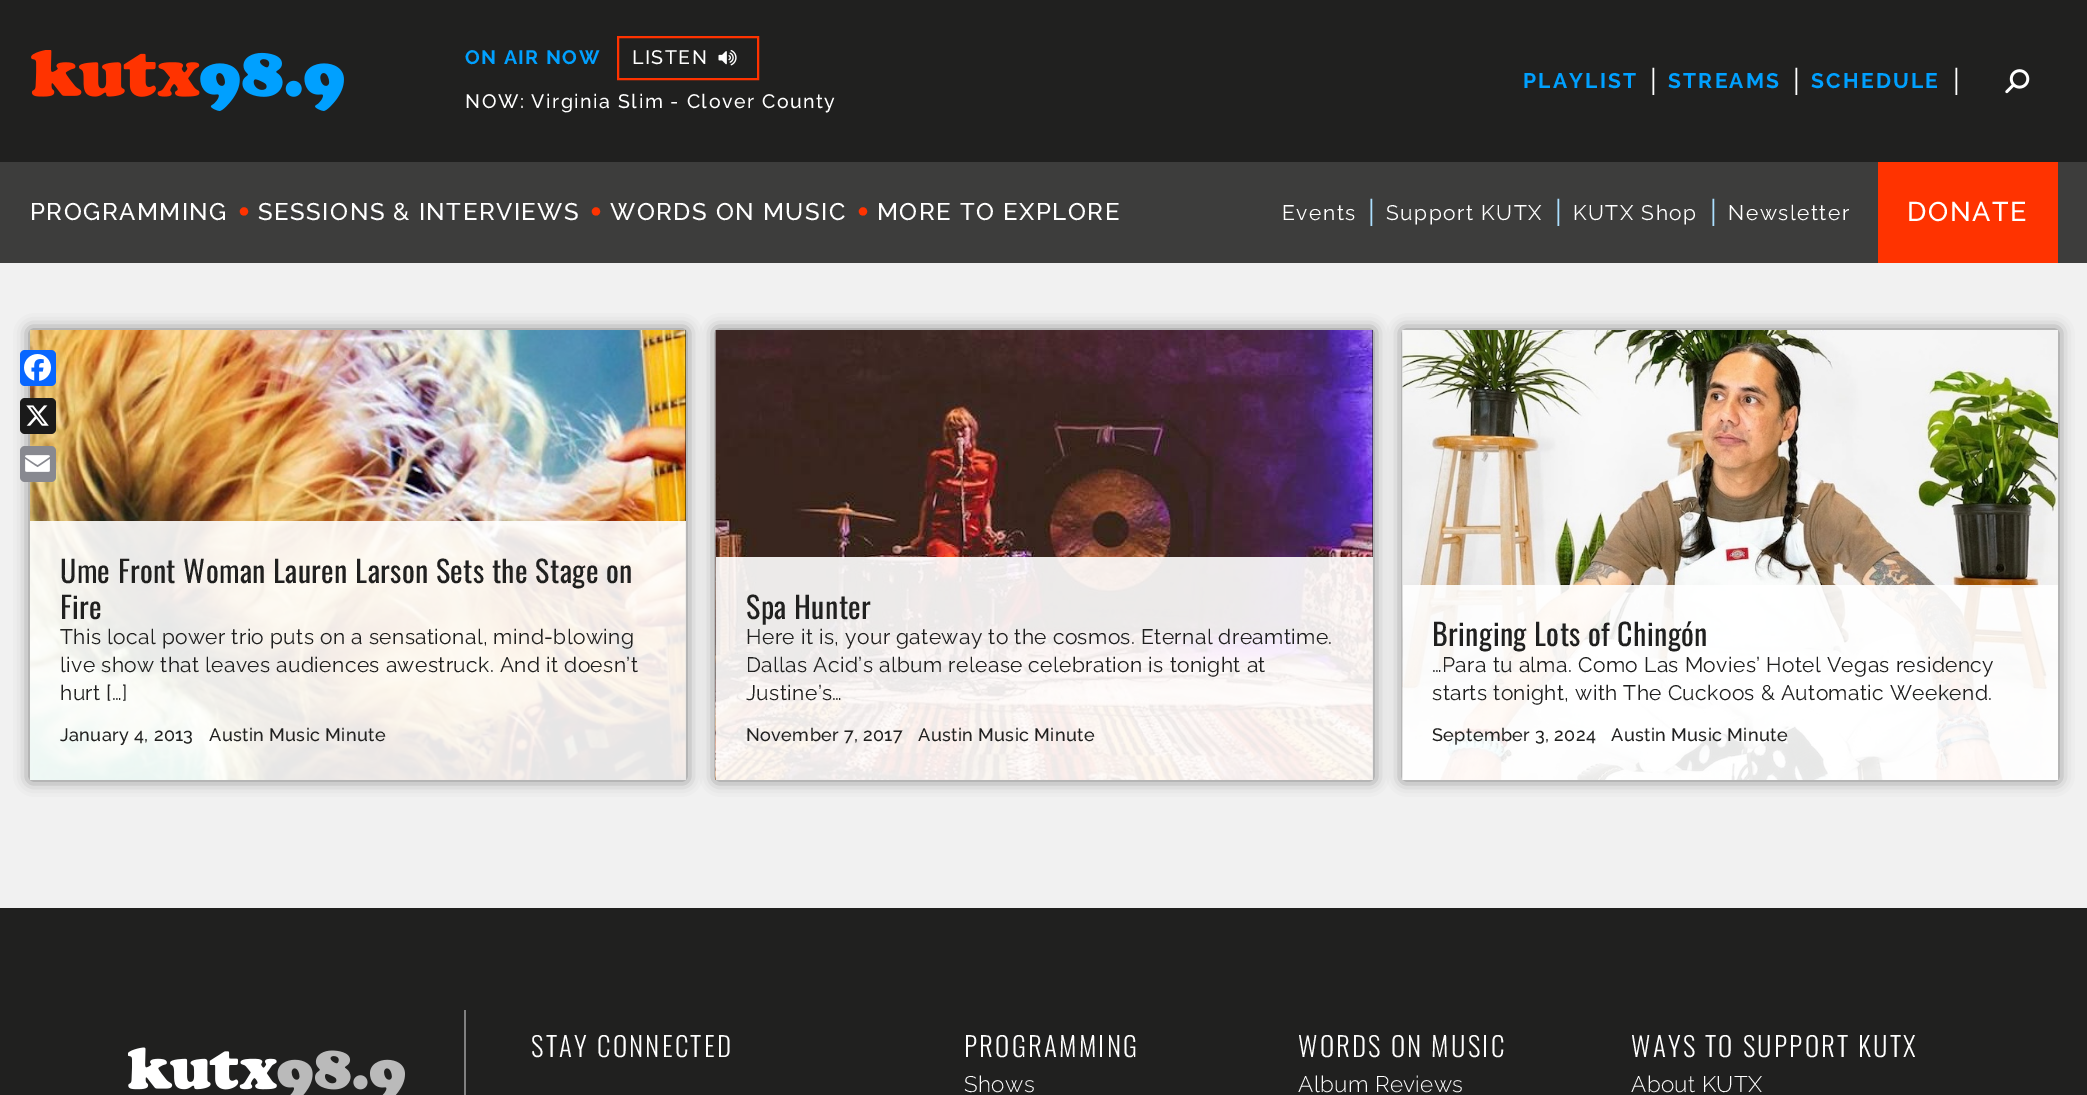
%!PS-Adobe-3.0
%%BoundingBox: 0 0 2087 1095
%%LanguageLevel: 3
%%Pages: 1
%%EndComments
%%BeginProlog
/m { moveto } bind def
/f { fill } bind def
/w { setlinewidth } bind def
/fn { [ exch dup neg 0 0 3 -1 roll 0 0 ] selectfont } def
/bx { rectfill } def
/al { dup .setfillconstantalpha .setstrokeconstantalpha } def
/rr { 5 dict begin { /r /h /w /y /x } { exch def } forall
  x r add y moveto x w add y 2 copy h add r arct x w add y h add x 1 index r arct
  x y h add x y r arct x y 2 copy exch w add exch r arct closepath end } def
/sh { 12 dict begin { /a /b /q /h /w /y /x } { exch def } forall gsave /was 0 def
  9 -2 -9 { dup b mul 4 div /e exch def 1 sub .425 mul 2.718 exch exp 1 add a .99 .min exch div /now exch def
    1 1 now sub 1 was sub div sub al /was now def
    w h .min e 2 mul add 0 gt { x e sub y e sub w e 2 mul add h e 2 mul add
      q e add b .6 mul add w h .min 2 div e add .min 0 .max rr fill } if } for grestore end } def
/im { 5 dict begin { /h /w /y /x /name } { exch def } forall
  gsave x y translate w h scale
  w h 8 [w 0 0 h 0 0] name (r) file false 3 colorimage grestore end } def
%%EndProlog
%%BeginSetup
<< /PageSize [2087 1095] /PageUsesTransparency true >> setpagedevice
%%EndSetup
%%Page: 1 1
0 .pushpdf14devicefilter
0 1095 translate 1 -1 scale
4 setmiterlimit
0.125 0.125 0.122 setrgbcolor
0 0 2087 1095 bx
(image0.raw) 31 50 313 61 im
/Raleway-Bold 19.5 fn
0 0.627 1 setrgbcolor
465 64 m 1.5 0 (ON AIR NOW) ashow
1 0.2 0 setrgbcolor
2 w
618 37 140 42 rectstroke
/Raleway-Medium 19.5 fn
1 setgray
632 64 m 1.5 0 (LISTEN) ashow
(image1.raw) 718 50 19 16 im
465 108 m 1.5 0 (NOW: Virginia Slim - Clover County) ashow
/Raleway-Bold 21 fn
0 0.627 1 setrgbcolor
1523 88 m 2.25 0 (PLAYLIST) ashow
/Raleway-Regular 30 fn
1 setgray
1650 91 m 0.38 0 (|) ashow
/Raleway-Bold 21 fn
0 0.627 1 setrgbcolor
1668 88 m 2.25 0 (STREAMS) ashow
/Raleway-Regular 30 fn
1 setgray
1793 91 m 0.38 0 (|) ashow
/Raleway-Bold 21 fn
0 0.627 1 setrgbcolor
1811 88 m 2.25 0 (SCHEDULE) ashow
/Raleway-Regular 30 fn
1 setgray
1953 91 m 0.38 0 (|) ashow
(image2.raw) 2005 69 25 25 im
0.239 0.239 0.235 setrgbcolor
0 162 2087 101 bx
/Raleway-Medium 24 fn
1 setgray
30 220 m 1.5 0 (PROGRAMMING) ashow
/Raleway-Medium 45 fn
1 0.2 0 setrgbcolor
236 227 m 1.5 0 (•) ashow
/Raleway-Medium 24 fn
1 setgray
258 220 m 1.5 0 (SESSIONS & INTERVIEWS) ashow
/Raleway-Medium 45 fn
1 0.2 0 setrgbcolor
588 227 m 1.5 0 (•) ashow
/Raleway-Medium 24 fn
1 setgray
610 220 m 1.5 0 (WORDS ON MUSIC) ashow
/Raleway-Medium 45 fn
1 0.2 0 setrgbcolor
855 227 m 1.5 0 (•) ashow
/Raleway-Medium 24 fn
1 setgray
877 220 m 1.5 0 (MORE TO EXPLORE) ashow
/Raleway-Regular 21 fn
1282 220 m 1.5 0 (Events) ashow
/Raleway-Regular 30 fn
0.671 0.875 1 setrgbcolor
1368 222 m 0.38 0 (|) ashow
/Raleway-Regular 21 fn
1 setgray
1386 220 m 1.5 0 (Support KUTX) ashow
/Raleway-Regular 30 fn
0.671 0.875 1 setrgbcolor
1555 222 m 0.38 0 (|) ashow
/Raleway-Regular 21 fn
1 setgray
1573 220 m 1.5 0 (KUTX Shop) ashow
/Raleway-Regular 30 fn
0.671 0.875 1 setrgbcolor
1710 222 m 0.38 0 (|) ashow
/Raleway-Regular 21 fn
1 setgray
1728 220 m 1.5 0 (Newsletter) ashow
1 0.2 0 setrgbcolor
1878 162 180 101 bx
/Raleway-Medium 27 fn
1 setgray
1907 221 m 1.5 0 (DONATE) ashow
0.945 setgray
0 263 2087 645 bx
0 setgray
30 330 656 450 0 7.5 0.5 sh
685 330 1 450 bx
(image3.raw) 30 330 656 450 im
0.9 al
1 setgray
30 521 656 259 bx
/Oswald-Regular 30 fn
1 al
0.125 0.125 0.122 setrgbcolor
60 583 m 0.38 0 (Ume Front Woman Lauren Larson Sets the Stage on) ashow
60 619 m 0.38 0 (Fire) ashow
/Raleway-Regular 21 fn
60 644 m 0.38 0 (This local power trio puts on a sensational, mind-blowing) ashow
60 672 m 0.38 0 (live show that leaves audiences awestruck. And it doesn’t) ashow
60 700 m 0.38 0 (hurt […]) ashow
/Raleway-Medium 18 fn
60 741 m 0.38 0 (January 4, 2013) ashow
209 741 m 0.38 0 (Austin Music Minute) ashow
0 setgray
716 330 657 450 0 7.5 0.5 sh
1372 330 1 450 bx
(image4.raw) 715 330 658 450 im
0.9 al
1 setgray
716 557 657 223 bx
/Oswald-Regular 30 fn
1 al
0.125 0.125 0.122 setrgbcolor
746 619 m 0.38 0 (Spa Hunter) ashow
/Raleway-Regular 21 fn
746 644 m 0.38 0 (Here it is, your gateway to the cosmos. Eternal dreamtime.) ashow
746 672 m 0.38 0 (Dallas Acid’s album release celebration is tonight at) ashow
746 700 m 0.38 0 (Justine’s…) ashow
/Raleway-Medium 18 fn
746 741 m 0.38 0 (November 7, 2017) ashow
918 741 m 0.38 0 (Austin Music Minute) ashow
0 setgray
1403 330 655 450 0 7.5 0.5 sh
(image5.raw) 1402 330 656 450 im
0.9 al
1 setgray
1403 585 655 195 bx
/Oswald-Regular 30 fn
1 al
0.125 0.125 0.122 setrgbcolor
1432 646 m 0.38 0 (Bringing Lots of Chingón) ashow
/Raleway-Regular 21 fn
1432 672 m 0.38 0 (…Para tu alma. Como Las Movies’ Hotel Vegas residency) ashow
1432 700 m 0.38 0 (starts tonight, with The Cuckoos & Automatic Weekend.) ashow
/Raleway-Medium 18 fn
1432 741 m 0.38 0 (September 3, 2024) ashow
1611 741 m 0.38 0 (Austin Music Minute) ashow
(image6.raw) 128 1047 277 48 im
0.502 setgray
464 1010 2 85 bx
/Oswald-Light 27 fn
1 setgray
531 1057 m 2.25 0 (STAY CONNECTED) ashow
964 1057 m 2.25 0 (PROGRAMMING) ashow
/Raleway-Light 22.5 fn
964 1092 m 0.38 0 (Shows) ashow
/Oswald-Light 27 fn
1298 1057 m 2.25 0 (WORDS ON MUSIC) ashow
/Raleway-Light 22.5 fn
1298 1092 m 0.38 0 (Album Reviews) ashow
/Oswald-Light 27 fn
1631 1057 m 2.25 0 (WAYS TO SUPPORT KUTX) ashow
/Raleway-Light 22.5 fn
1631 1092 m 0.38 0 (About KUTX) ashow
0.031 0.4 1 setrgbcolor
20 350 36 36 5 rr f
(image7.raw) 24 354 27 27 im
0.102 setgray
20 398 36 36 5 rr f
(image8.raw) 26 405 23 21 im
0.533 0.537 0.565 setrgbcolor
20 446 36 36 5 rr f
(image9.raw) 25 455 25 17 im
.poppdf14devicefilter showpage
%%EOF
